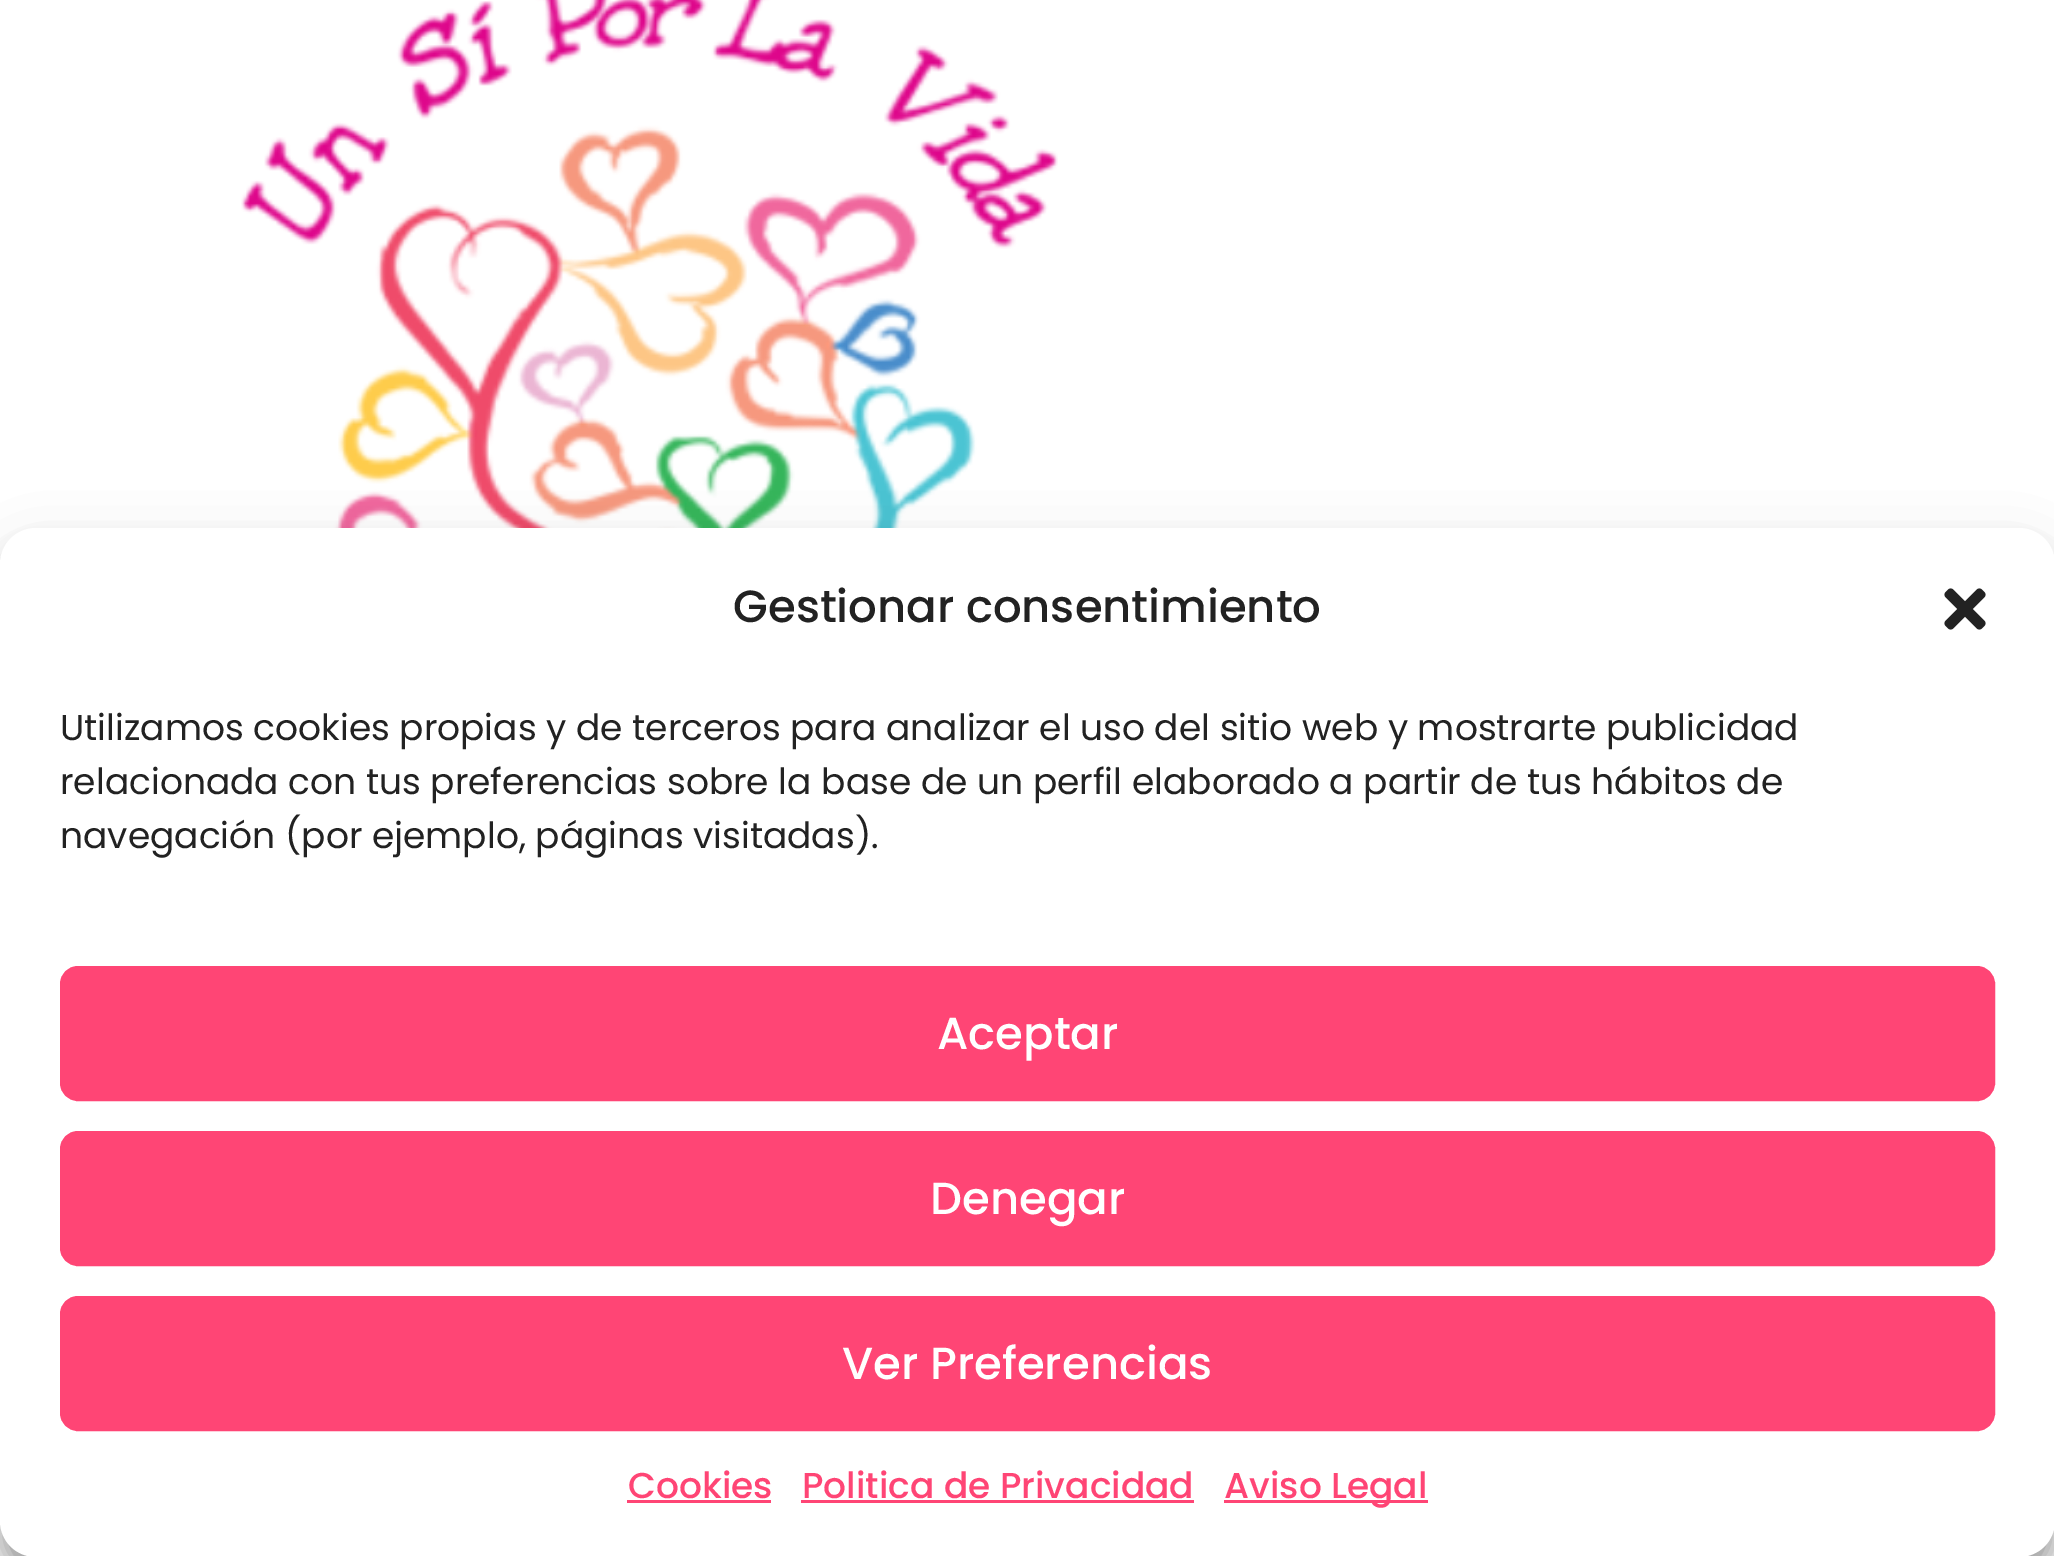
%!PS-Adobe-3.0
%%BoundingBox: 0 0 2054 1556
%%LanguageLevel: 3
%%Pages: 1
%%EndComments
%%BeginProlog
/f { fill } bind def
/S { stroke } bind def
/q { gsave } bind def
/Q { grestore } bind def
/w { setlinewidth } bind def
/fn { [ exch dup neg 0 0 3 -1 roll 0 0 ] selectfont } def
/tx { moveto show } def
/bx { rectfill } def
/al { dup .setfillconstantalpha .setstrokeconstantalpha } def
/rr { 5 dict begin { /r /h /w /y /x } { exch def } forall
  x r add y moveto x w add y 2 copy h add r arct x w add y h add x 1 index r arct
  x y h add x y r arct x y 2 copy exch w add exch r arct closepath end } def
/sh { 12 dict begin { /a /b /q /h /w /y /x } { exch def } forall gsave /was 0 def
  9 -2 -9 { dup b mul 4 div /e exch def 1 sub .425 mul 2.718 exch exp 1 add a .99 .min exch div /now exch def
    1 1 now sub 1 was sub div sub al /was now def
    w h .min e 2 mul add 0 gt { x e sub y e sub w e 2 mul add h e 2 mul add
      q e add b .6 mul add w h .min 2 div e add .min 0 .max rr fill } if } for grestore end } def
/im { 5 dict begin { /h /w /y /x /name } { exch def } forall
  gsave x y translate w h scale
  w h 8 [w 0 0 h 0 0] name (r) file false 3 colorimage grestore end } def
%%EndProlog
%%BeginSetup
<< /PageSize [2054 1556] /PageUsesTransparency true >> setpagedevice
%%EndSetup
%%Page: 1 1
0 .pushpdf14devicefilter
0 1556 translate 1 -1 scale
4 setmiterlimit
1 setgray
0 0 2054 1556 bx
(image0.raw) 241 0 817 528 im
0 setgray
0 546 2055 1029 36 9 0.23 sh
0 558 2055 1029 36 30 0.19 sh
1 setgray
0 528 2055 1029 36 rr f
/Poppins-Medium 45 fn
0.133 setgray
(Gestionar consentimiento) 733 622 tx
(image1.raw) 1944 588 42 42 im
/Poppins-Regular 36 fn
(Utilizamos cookies propias y de terceros para analizar el uso del sitio web y mostrarte publicidad) 60 740 tx
(relacionada con tus preferencias sobre la base de un perfil elaborado a partir de tus hábitos de) 60 794 tx
(navegación \(por ejemplo, páginas visitadas\).) 60 848 tx
1 0.271 0.459 setrgbcolor
61.5 967.5 1932 132 16.5 rr q f Q
3 w
S
/Poppins-Medium 45 fn
1 setgray
(Aceptar) 937 1049 tx
1 0.271 0.459 setrgbcolor
61.5 1132.5 1932 132 16.5 rr q f Q
S
1 setgray
(Denegar) 930 1214 tx
1 0.271 0.459 setrgbcolor
61.5 1297.5 1932 132 16.5 rr q f Q
S
1 setgray
(Ver Preferencias) 842 1379 tx
/Poppins-Medium 36 fn
1 0.271 0.459 setrgbcolor
(Cookies) 628 1498 tx
627 1500 144 3 bx
(Politica de Privacidad) 802 1498 tx
801 1500 393 3 bx
1224 1500 204 3 bx
(Aviso Legal) 1224 1498 tx
.poppdf14devicefilter showpage
%%EOF
